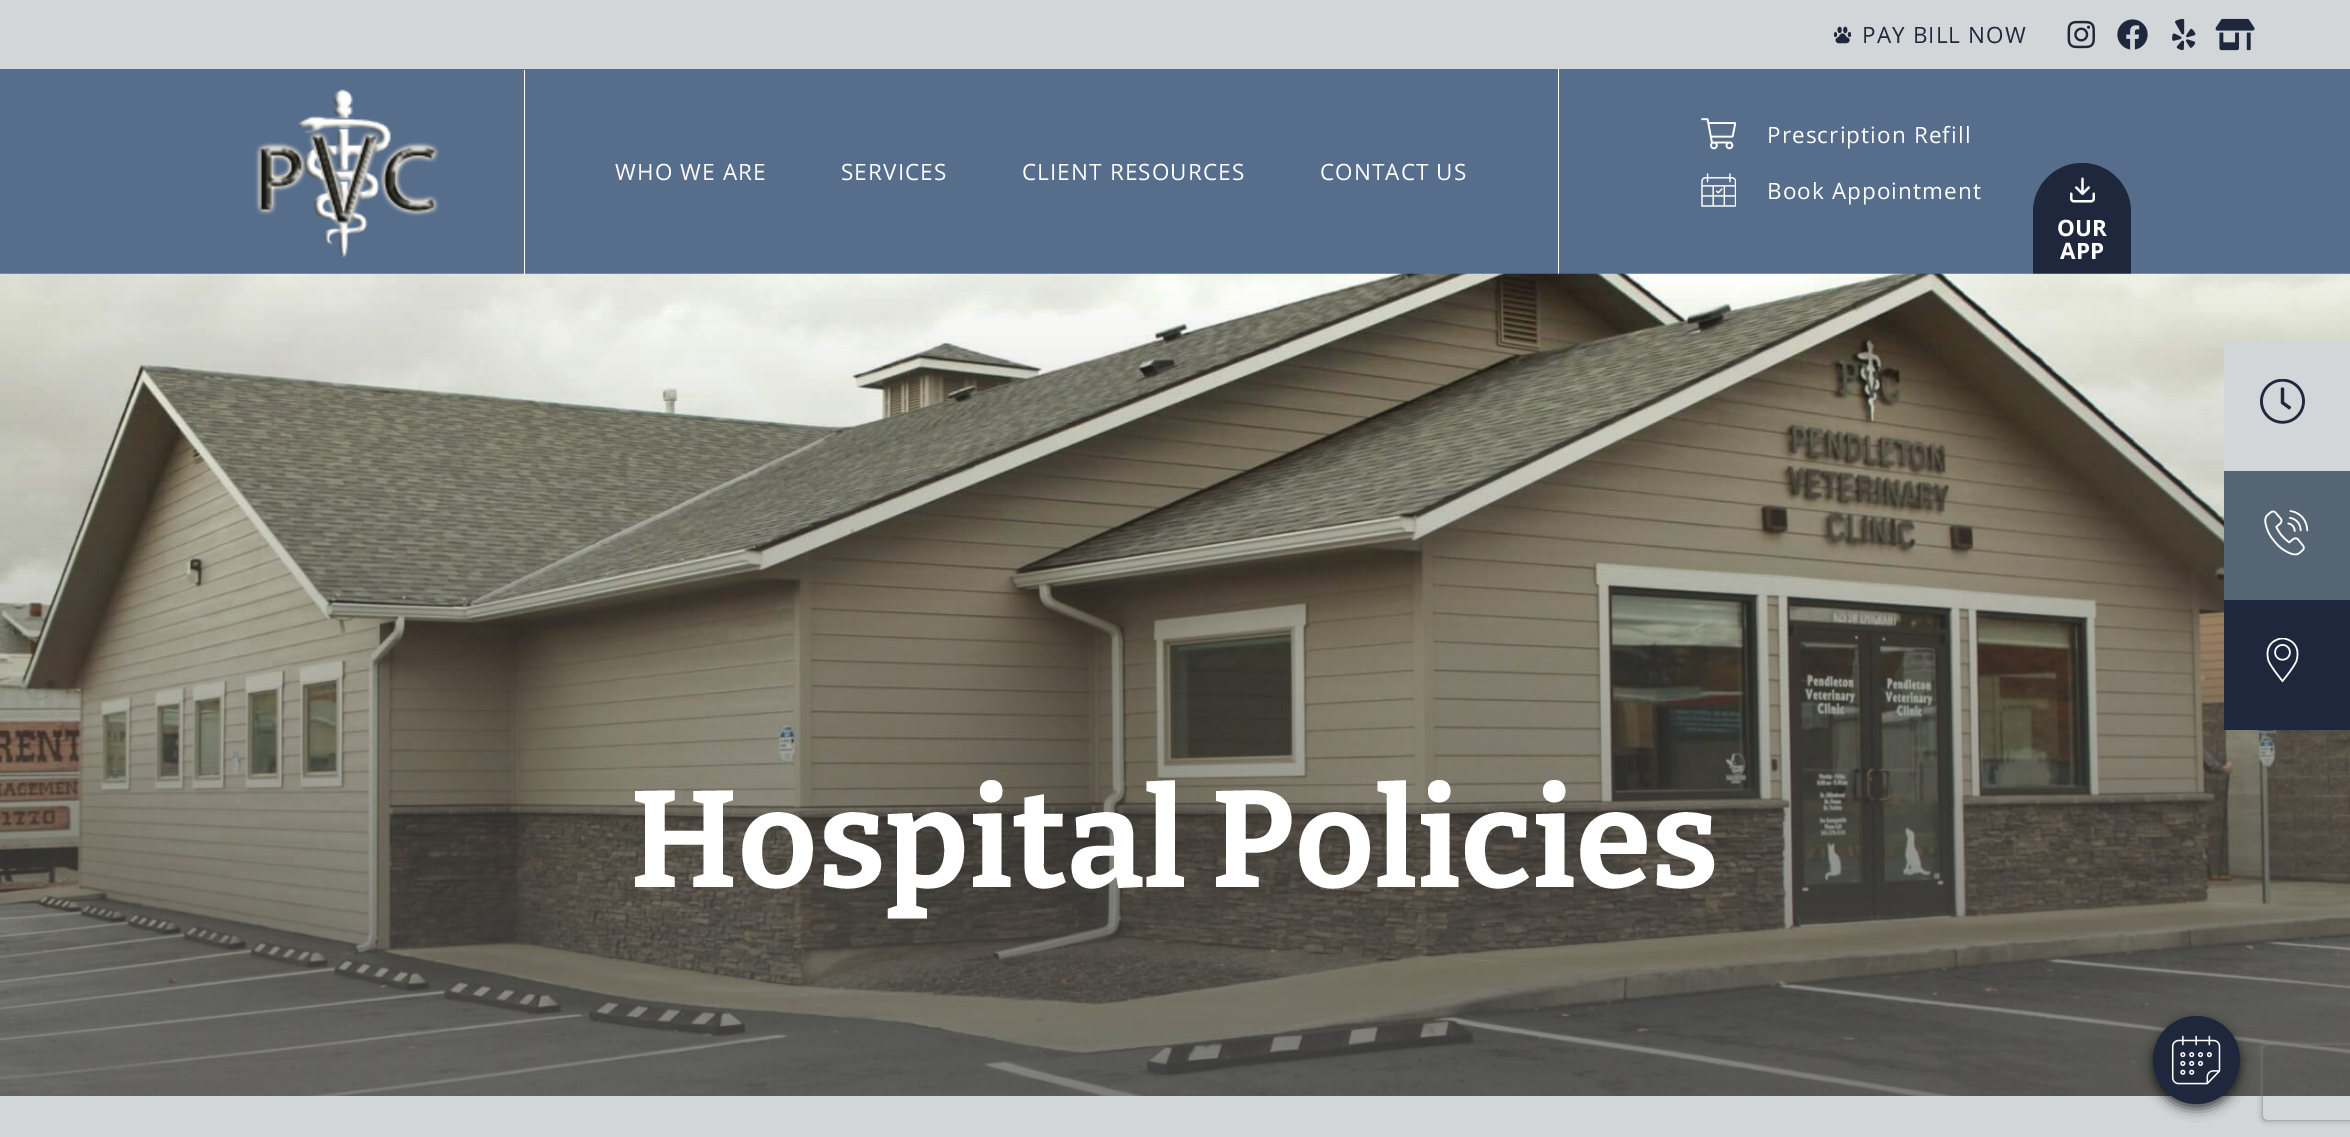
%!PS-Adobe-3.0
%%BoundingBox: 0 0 2350 1137
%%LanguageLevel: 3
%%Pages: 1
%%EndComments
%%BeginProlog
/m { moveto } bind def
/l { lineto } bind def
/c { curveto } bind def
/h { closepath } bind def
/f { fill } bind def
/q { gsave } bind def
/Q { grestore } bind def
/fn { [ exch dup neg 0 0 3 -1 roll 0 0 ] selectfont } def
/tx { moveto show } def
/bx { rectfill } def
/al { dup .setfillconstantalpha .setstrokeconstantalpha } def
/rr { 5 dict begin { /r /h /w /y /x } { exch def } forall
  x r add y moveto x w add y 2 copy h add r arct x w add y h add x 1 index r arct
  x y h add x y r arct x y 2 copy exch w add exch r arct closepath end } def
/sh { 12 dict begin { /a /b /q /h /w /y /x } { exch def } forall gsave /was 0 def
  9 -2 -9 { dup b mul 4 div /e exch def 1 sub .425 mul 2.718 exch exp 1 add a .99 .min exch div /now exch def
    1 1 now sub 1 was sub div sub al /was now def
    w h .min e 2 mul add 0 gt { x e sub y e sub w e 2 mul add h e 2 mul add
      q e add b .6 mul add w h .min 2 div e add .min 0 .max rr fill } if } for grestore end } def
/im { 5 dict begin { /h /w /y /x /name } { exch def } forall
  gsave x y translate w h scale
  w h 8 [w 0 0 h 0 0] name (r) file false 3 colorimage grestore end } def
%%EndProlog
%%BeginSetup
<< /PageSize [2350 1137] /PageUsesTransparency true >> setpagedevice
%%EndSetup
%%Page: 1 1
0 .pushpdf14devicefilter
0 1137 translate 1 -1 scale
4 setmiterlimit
0.824 0.839 0.851 setrgbcolor
0 0 2350 1137 bx
(image0.raw) 1834 26 17 18 im
/OpenSans-Regular 22.5 fn
0.118 0.153 0.235 setrgbcolor
1862 43 m 1.1 0 (PAY BILL NOW) ashow
(image1.raw) 2067 20 28 29 im
(image2.raw) 2117 19 31 31 im
(image3.raw) 2172 18 24 33 im
(image4.raw) 2215 18 40 33 im
0.337 0.427 0.549 setrgbcolor
0 69 2350 205 bx
1 setgray
524 70 1 204 bx
(image5.raw) 255 89 184 169 im
615 180 m 1.1 0 (WHO WE ARE) ashow
841 180 m 1.1 0 (SERVICES) ashow
1022 180 m 1.1 0 (CLIENT RESOURCES) ashow
1320 180 m 1.1 0 (CONTACT US) ashow
1558 69 1 205 bx
(image6.raw) 1701 118 35 32 im
1767 143 m 1.1 0 (Prescription Refill) ashow
(image7.raw) 1701 173 35 34 im
1767 199 m 1.1 0 (Book Appointment) ashow
0.118 0.153 0.235 setrgbcolor
2082 163 m 2109 163 2131 185 2131 212 c 2131 274 l 2033 274 l 2033 212 l 2033 185 2055 163 2082 163 c h f
(image8.raw) 2070 177 25 26 im
/OpenSans-Bold 22.5 fn
1 setgray
(OUR) 2057 236 tx
(APP) 2060 259 tx
(image12.raw) 0 273 2350 823 im
0.824 0.839 0.851 setrgbcolor
2224 341 126 130 bx
(image9.raw) 2260 379 45 45 im
0.337 0.396 0.455 setrgbcolor
2224 471 126 129 bx
(image10.raw) 2264 510 45 46 im
0.118 0.153 0.235 setrgbcolor
2224 600 126 130 bx
(image11.raw) 2266 638 33 45 im
/Bitter-Bold 137.5 fn
1 setgray
(Hospital Policies) 630 887 tx
0 setgray
2153 1021 87 88 43.5 6 0.7 sh
0.118 0.153 0.235 setrgbcolor
2153 1016 87 88 43.5 rr f
(image13.raw) 2171 1035 50 50 im
q
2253 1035 m 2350 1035 l 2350 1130 l 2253 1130 l h 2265.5 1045 m 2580.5 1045 l 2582 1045 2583 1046 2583 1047.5 c 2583 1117.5 l 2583 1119 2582 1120 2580.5 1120 c 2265.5 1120 l 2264 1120 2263 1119 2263 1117.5 c 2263 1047.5 l 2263 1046 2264 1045 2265.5 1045 c h eoclip newpath
0.502 setgray
2263 1045 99 75 2.5 3 1 sh
Q
.poppdf14devicefilter showpage
%%EOF
